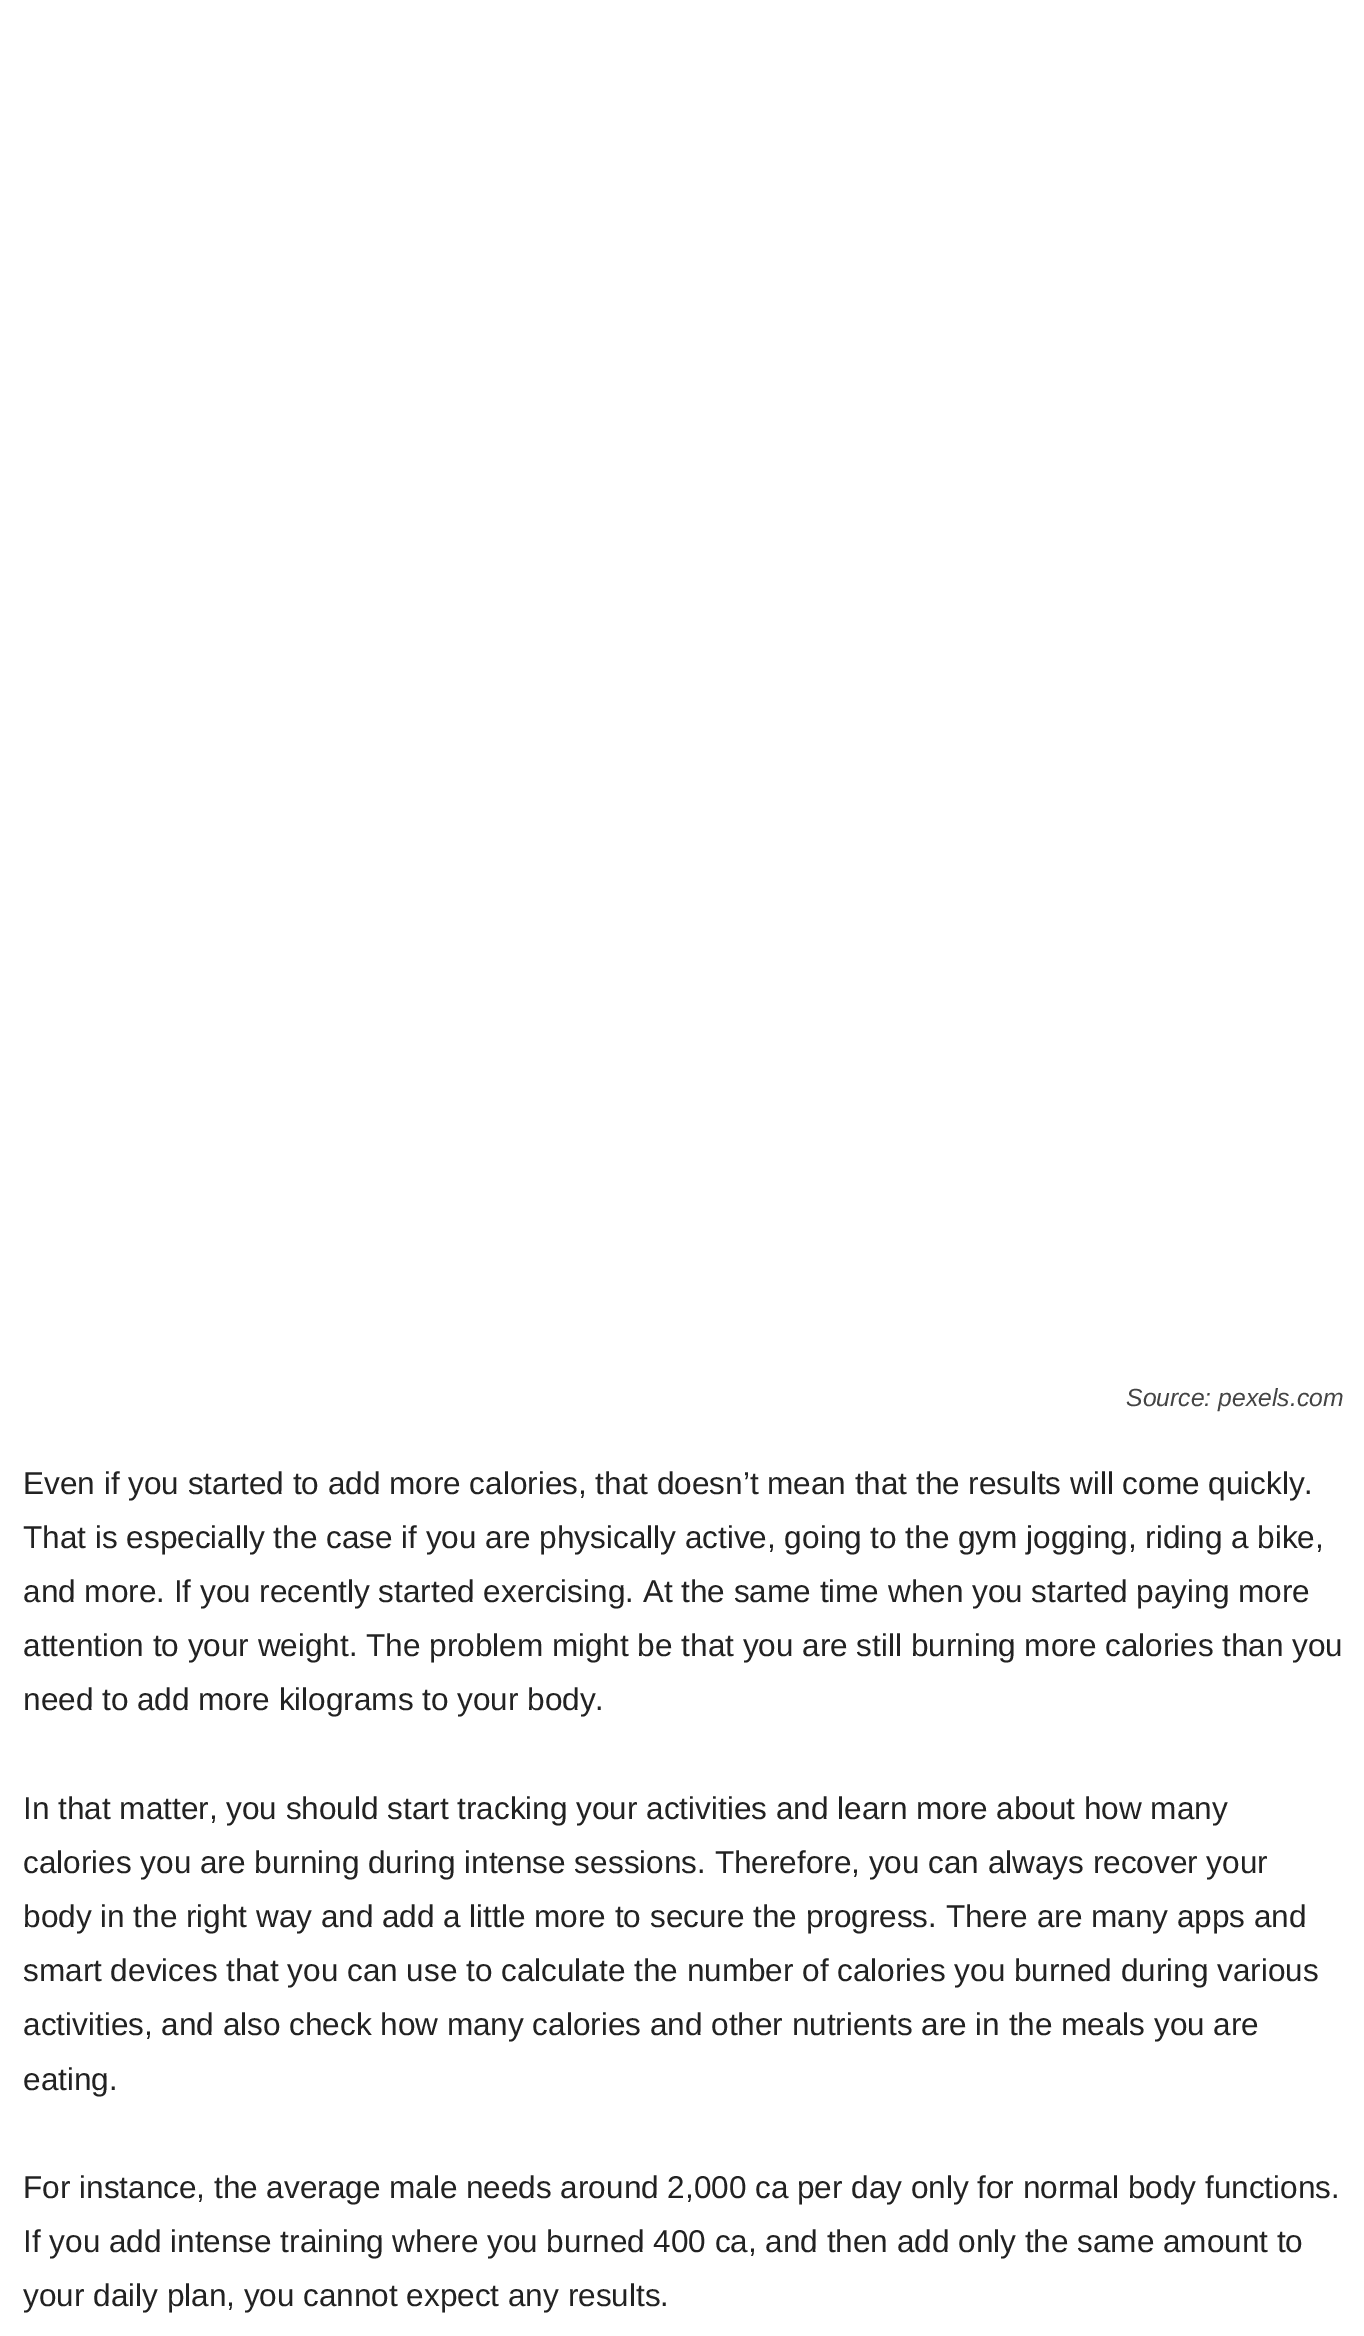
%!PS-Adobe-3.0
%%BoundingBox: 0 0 1364 2336
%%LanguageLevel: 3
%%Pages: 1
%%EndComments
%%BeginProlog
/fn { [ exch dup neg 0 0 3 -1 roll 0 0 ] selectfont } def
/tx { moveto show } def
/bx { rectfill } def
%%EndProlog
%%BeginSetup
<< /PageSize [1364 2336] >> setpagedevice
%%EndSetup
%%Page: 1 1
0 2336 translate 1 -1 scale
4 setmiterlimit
1 setgray
0 0 1364 2336 bx
/LiberationSans-Italic 24.75 fn
0.267 setgray
(Source: pexels.com) 1126 1406 tx
/LiberationSans-Regular 31.5 fn
0.133 setgray
(Even if you started to add more calories, that doesn’t mean that the results will come quickly.) 23 1494 tx
(That is especially the case if you are physically active, going to the gym jogging, riding a bike,) 23 1548 tx
(and more. If you recently started exercising. At the same time when you started paying more) 23 1602 tx
(attention to your weight. The problem might be that you are still burning more calories than you) 23 1656 tx
(need to add more kilograms to your body.) 23 1710 tx
(In that matter, you should start tracking your activities and learn more about how many) 23 1819 tx
(calories you are burning during intense sessions. Therefore, you can always recover your) 23 1873 tx
(body in the right way and add a little more to secure the progress. There are many apps and) 23 1927 tx
(smart devices that you can use to calculate the number of calories you burned during various) 23 1981 tx
(activities, and also check how many calories and other nutrients are in the meals you are) 23 2035 tx
(eating.) 23 2090 tx
(For instance, the average male needs around 2,000 ca per day only for normal body functions.) 23 2198 tx
(If you add intense training where you burned 400 ca, and then add only the same amount to) 23 2252 tx
(your daily plan, you cannot expect any results.) 23 2306 tx
showpage
%%EOF
